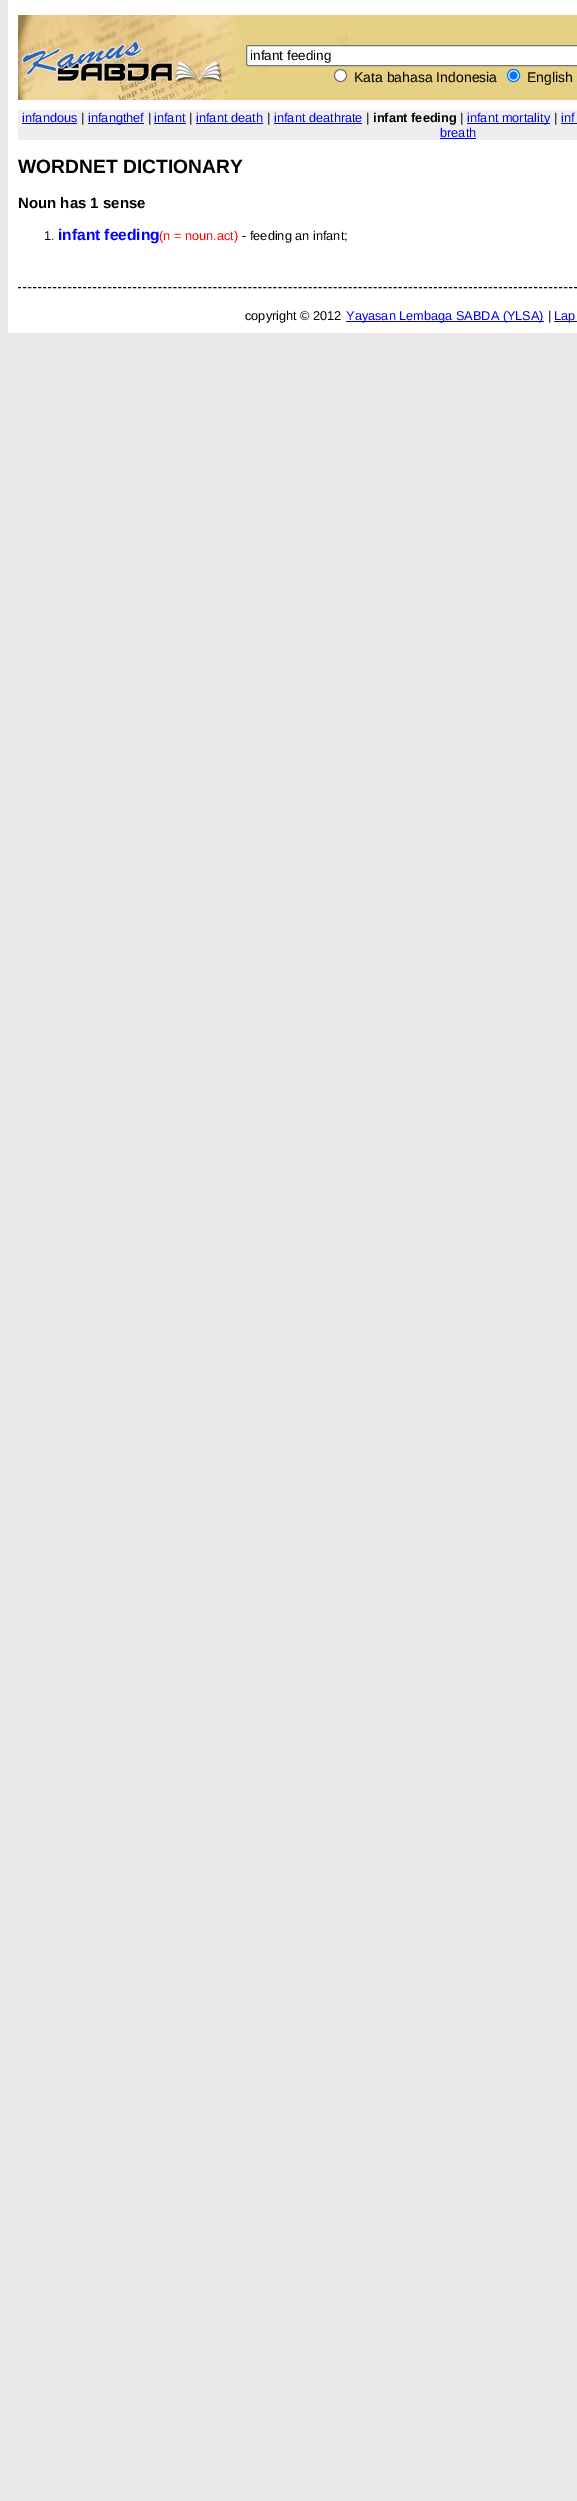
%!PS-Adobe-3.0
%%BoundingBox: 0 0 577 2501
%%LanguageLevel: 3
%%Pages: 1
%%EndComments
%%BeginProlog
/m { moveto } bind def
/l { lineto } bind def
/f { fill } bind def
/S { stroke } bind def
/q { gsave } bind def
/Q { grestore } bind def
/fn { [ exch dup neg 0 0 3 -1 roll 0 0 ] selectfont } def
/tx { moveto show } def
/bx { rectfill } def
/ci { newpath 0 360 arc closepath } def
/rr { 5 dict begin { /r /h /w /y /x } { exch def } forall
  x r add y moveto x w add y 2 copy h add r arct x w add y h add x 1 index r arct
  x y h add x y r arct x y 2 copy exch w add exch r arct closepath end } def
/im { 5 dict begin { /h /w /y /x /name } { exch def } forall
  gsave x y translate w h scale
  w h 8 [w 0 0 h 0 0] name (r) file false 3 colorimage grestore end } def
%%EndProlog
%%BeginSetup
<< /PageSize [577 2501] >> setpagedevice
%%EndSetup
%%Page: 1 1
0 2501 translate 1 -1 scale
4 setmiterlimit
0.914 setgray
0 0 577 2501 bx
1 setgray
8 0 569 333 bx
(image0.raw) 18 15 559 85 im
246.5 45.5 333 20 1.5 rr q f Q
0.463 setgray
S
/LiberationSans-Regular 13.5 fn
0 setgray
(infant feeding) 250 60 tx
1 setgray
340.5 75.5 6 ci q f Q
0.463 setgray
S
/LiberationSans-Regular 14 fn
0 setgray
(Kata bahasa Indonesia) 354 82 tx
1 setgray
513.5 75.5 6 ci q f Q
0 0.459 1 setrgbcolor
S
513.5 75.5 4 ci f
0 setgray
(English) 527 82 tx
0.933 setgray
18 110 559 30 bx
/LiberationSans-Regular 12.75 fn
0 0 0.933 setrgbcolor
(infandous) 22 122 tx
22 123 55 1 bx
0 setgray
(|) 81 122 tx
0 0 0.933 setrgbcolor
88 123 56 1 bx
(infangthef) 88 122 tx
0 setgray
(|) 148 122 tx
0 0 0.933 setrgbcolor
(infant) 154 122 tx
154 123 32 1 bx
0 setgray
(|) 189 122 tx
0 0 0.933 setrgbcolor
(infant death) 196 122 tx
196 123 67 1 bx
0 setgray
(|) 267 122 tx
0 0 0.933 setrgbcolor
(infant deathrate) 274 122 tx
274 123 88 1 bx
0 setgray
(|) 366 122 tx
/LiberationSans-Bold 12.75 fn
(infant feeding) 373 122 tx
/LiberationSans-Regular 12.75 fn
(|) 460 122 tx
0 0 0.933 setrgbcolor
467 123 83 1 bx
(infant mortality) 467 122 tx
0 setgray
(|) 554 122 tx
0 0 0.933 setrgbcolor
(inf) 561 122 tx
561 123 16 1 bx
(breath) 440 137 tx
440 138 36 1 bx
0 setgray
[3 2.01] 0 setdash
18 287.5 m 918 287.5 l S
/LiberationSans-Bold 19.25 fn
(WORDNET DICTIONARY) 18 173 tx
/LiberationSans-Bold 15 fn
(Noun has 1 sense) 18 208 tx
/LiberationSans-Regular 12.75 fn
(1.) 44 240 tx
/LiberationSans-Bold 15.5 fn
0 0 1 setrgbcolor
(infant feeding) 58 240 tx
/LiberationSans-Regular 12.75 fn
1 0 0 setrgbcolor
(\(n = noun.act\)) 159 240 tx
0 setgray
(- feeding an infant;) 242 240 tx
(copyright © 2012) 245 320 tx
0 0 0.933 setrgbcolor
346 321 198 1 bx
(Yayasan Lembaga SABDA \(YLSA\)) 346 320 tx
0 setgray
(|) 548 320 tx
0 0 0.933 setrgbcolor
554 321 23 1 bx
(Lap) 554 320 tx
showpage
%%EOF
